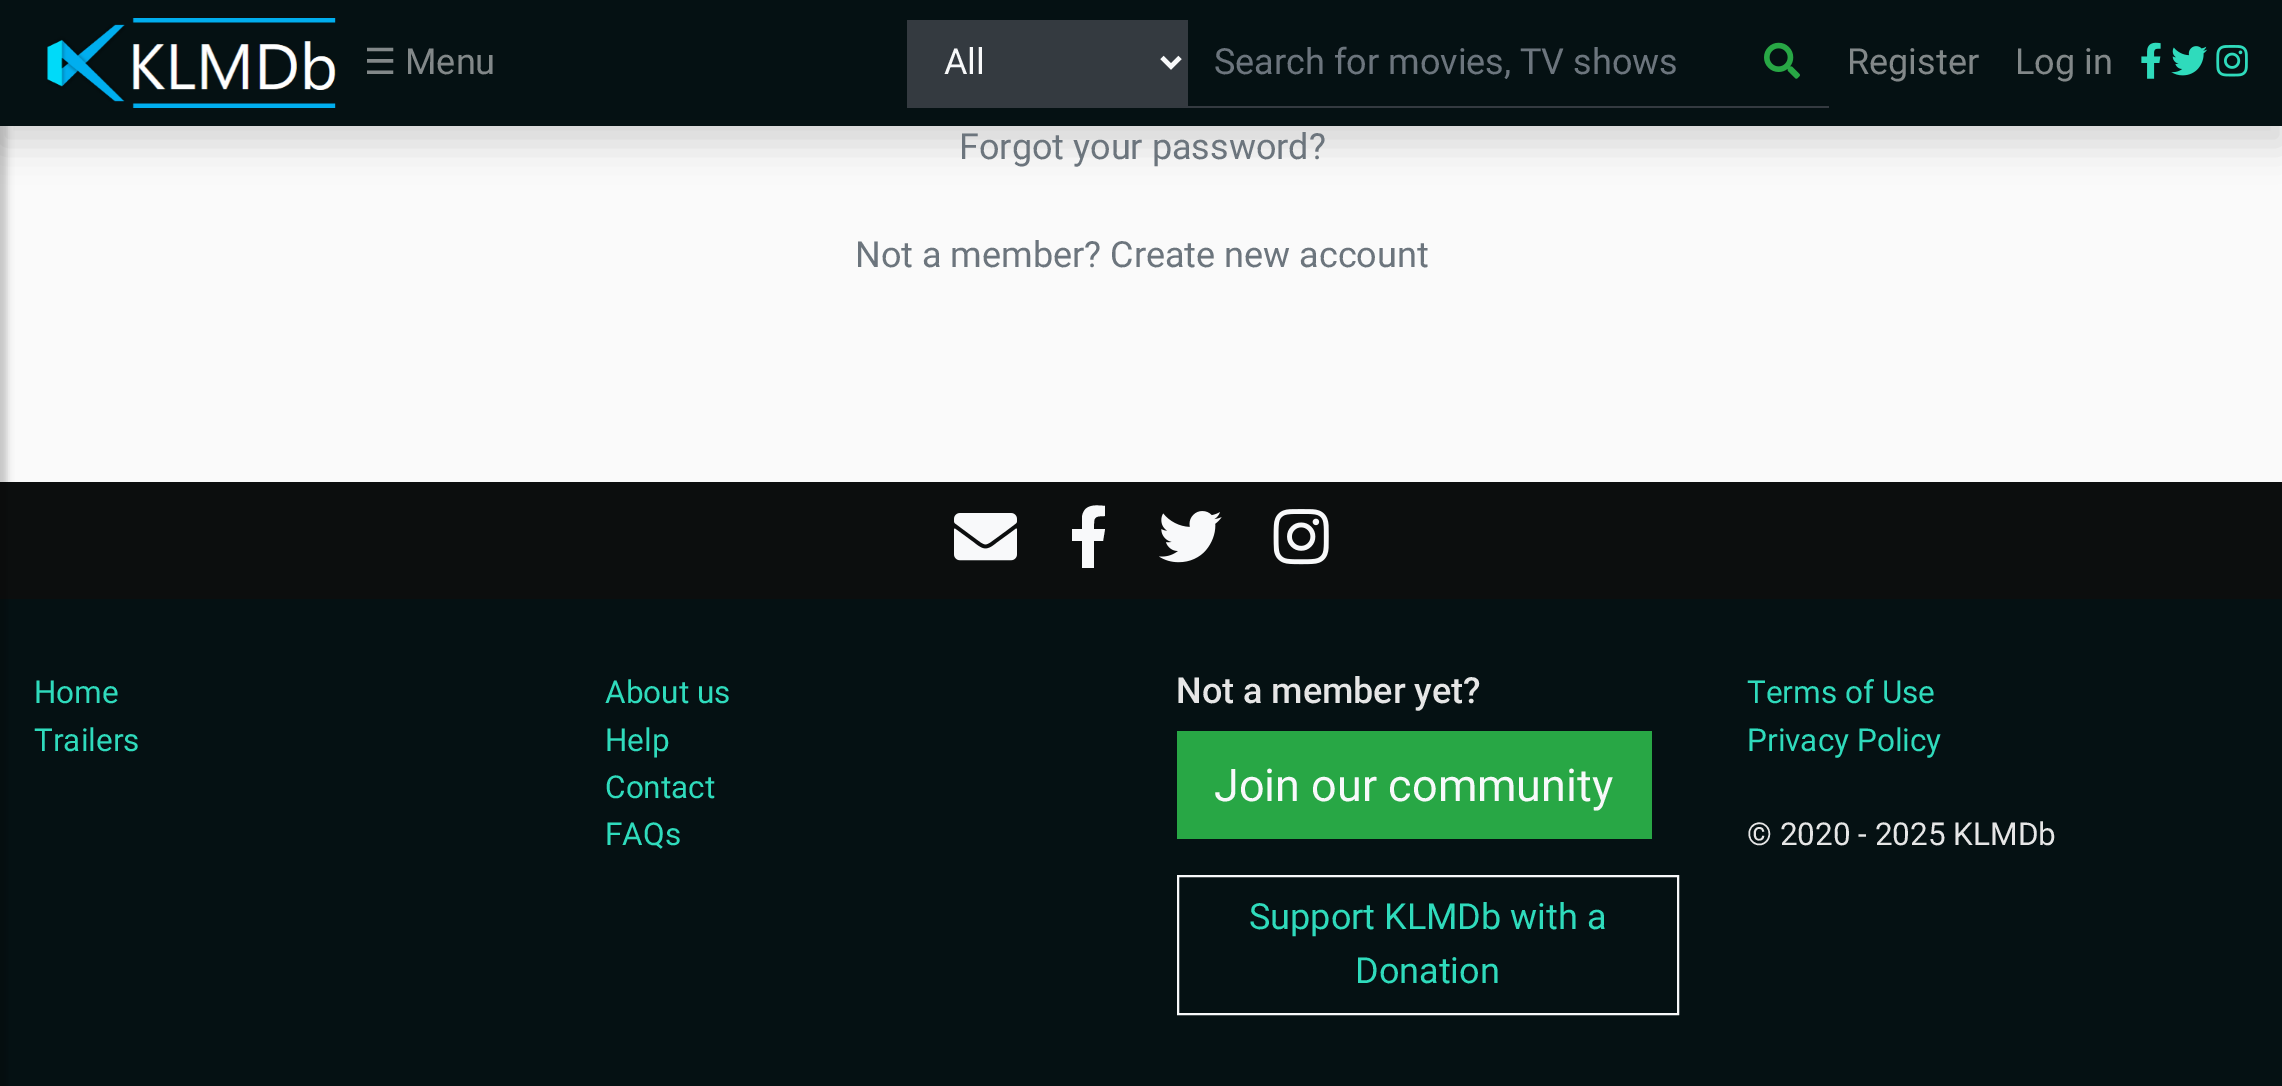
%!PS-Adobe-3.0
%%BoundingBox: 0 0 2282 1086
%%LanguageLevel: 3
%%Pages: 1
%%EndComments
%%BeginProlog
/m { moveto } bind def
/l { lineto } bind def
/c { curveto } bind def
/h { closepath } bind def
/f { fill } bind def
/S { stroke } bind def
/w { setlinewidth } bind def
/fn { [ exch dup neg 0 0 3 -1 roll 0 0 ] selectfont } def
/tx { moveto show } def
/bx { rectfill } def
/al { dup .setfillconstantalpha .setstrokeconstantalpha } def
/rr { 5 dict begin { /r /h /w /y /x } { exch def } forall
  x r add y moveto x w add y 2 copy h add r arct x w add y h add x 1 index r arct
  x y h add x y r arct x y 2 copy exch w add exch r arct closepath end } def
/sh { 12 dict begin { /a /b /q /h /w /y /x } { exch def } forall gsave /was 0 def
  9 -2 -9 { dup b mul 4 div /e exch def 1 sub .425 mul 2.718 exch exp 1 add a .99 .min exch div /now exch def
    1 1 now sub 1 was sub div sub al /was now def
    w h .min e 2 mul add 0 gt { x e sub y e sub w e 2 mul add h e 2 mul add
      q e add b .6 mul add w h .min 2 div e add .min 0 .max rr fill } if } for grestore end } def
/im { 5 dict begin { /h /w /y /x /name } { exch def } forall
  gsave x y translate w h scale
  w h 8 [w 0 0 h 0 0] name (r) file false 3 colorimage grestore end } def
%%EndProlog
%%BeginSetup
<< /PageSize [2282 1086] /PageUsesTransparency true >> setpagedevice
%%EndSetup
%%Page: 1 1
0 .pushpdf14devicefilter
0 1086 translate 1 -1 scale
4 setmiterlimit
0.98 setgray
0 0 2282 1086 bx
0.02 0.067 0.075 setrgbcolor
0 599 2282 487 bx
0.047 0.055 0.055 setrgbcolor
0 482 2282 117 bx
0 setgray
-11 7 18 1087 0 3.5 0.2 sh
0 18 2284 126 0 18 0.15 sh
0.02 0.067 0.075 setrgbcolor
0 0 2282 126 bx
(image0.raw) 47 18 289 90 im
/DejaVuSans-Regular 36 fn
0.51 0.533 0.537 setrgbcolor
(☰) 364 74 tx
/Roboto-Regular 36 fn
(Menu) 405 74 tx
0.204 0.227 0.251 setrgbcolor
907 106 922 2 bx
907 20 281 86 bx
0.973 0.976 0.98 setrgbcolor
4.5 w
1162 57.5 m 1171 66.5 l 1180 57.5 l S
(All) 944 74 tx
0.424 0.459 0.49 setrgbcolor
(Search for movies, TV shows) 1214 74 tx
(image1.raw) 1764 42 36 37 im
0.51 0.533 0.537 setrgbcolor
(Register) 1847 74 tx
(Log in) 2015 74 tx
(image2.raw) 2141 42 20 37 im
(image3.raw) 2171 46 37 30 im
(image4.raw) 2216 45 32 32 im
0.424 0.459 0.49 setrgbcolor
(Forgot your password?) 959 159 tx
(Not a member? Create new account) 855 267 tx
(image5.raw) 954 513 63 48 im
0.973 0.976 0.98 setrgbcolor
1103 541 m 1094 541 l 1094 568 l 1082 568 l 1082 541 l 1072 541 l 1072 529 l 1082 529 l 1082 517 l 1084 504 1095 505 1105 506 c 1105 516 l 1093 516 1094 518 1094 529 c 1105 529 l h f
(image6.raw) 1159 511 63 52 im
(image7.raw) 1273 509 56 56 im
/Roboto-Regular 31.5 fn
0.184 0.859 0.737 setrgbcolor
(Home) 34 703 tx
(Trailers) 34 751 tx
(About us) 605 703 tx
(Help) 605 751 tx
(Contact) 605 798 tx
(FAQs) 605 845 tx
/Roboto-Medium 36 fn
0.902 setgray
(Not a member yet?) 1176 703 tx
0.157 0.655 0.271 setrgbcolor
1177 731 475 108 bx
/Roboto-Regular 45 fn
0.973 0.976 0.98 setrgbcolor
(Join our community) 1214 801 tx
2 w
1178 876 500 138 rectstroke
/Roboto-Regular 36 fn
0.184 0.859 0.737 setrgbcolor
(Support KLMDb with a) 1249 929 tx
(Donation) 1355 983 tx
/Roboto-Regular 31.5 fn
(Terms of Use) 1747 703 tx
(Privacy Policy) 1747 751 tx
0.902 setgray
(© 2020 - 2025 KLMDb) 1747 845 tx
.poppdf14devicefilter showpage
%%EOF
